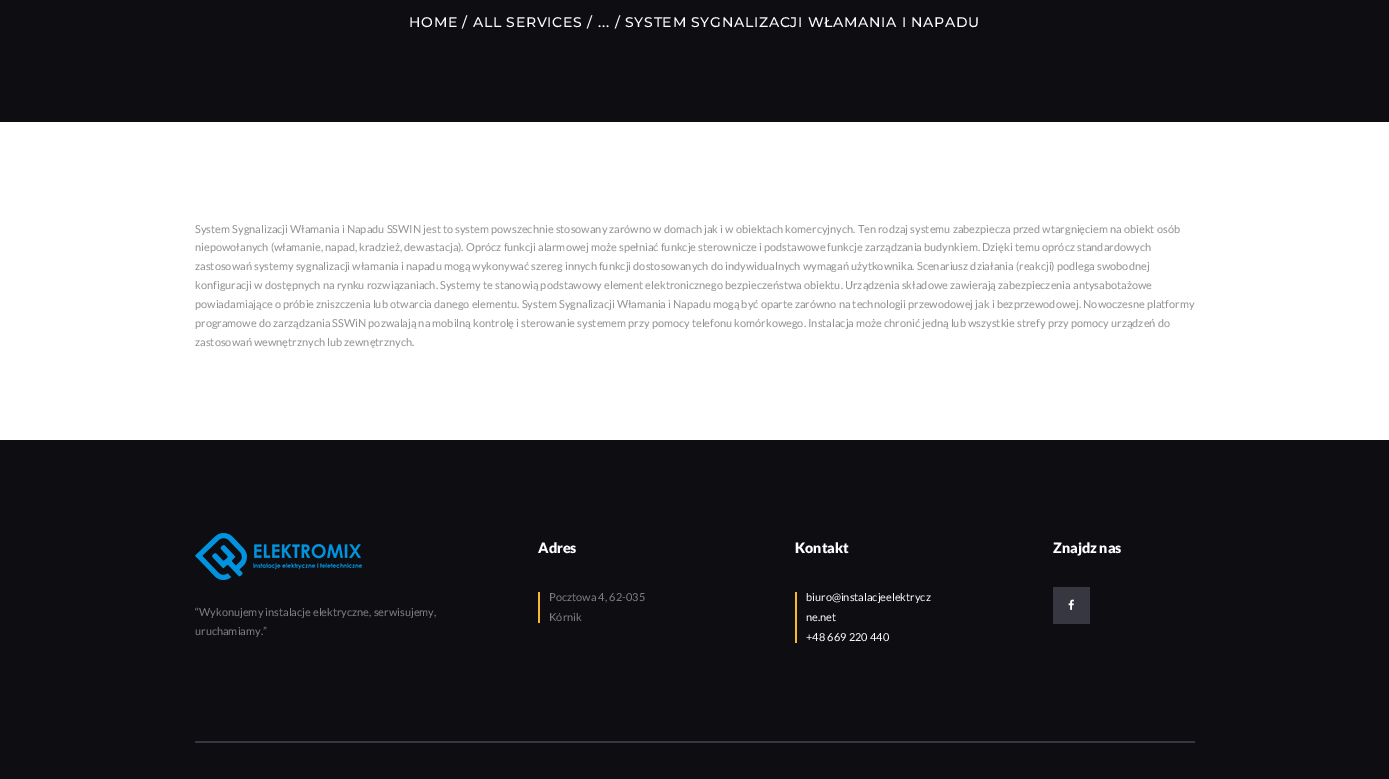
%!PS-Adobe-3.0
%%BoundingBox: 0 0 1389 779
%%LanguageLevel: 3
%%Pages: 1
%%EndComments
%%BeginProlog
/m { moveto } bind def
/fn { [ exch dup neg 0 0 3 -1 roll 0 0 ] selectfont } def
/tx { moveto show } def
/bx { rectfill } def
/im { 5 dict begin { /h /w /y /x /name } { exch def } forall
  gsave x y translate w h scale
  w h 8 [w 0 0 h 0 0] name (r) file false 3 colorimage grestore end } def
%%EndProlog
%%BeginSetup
<< /PageSize [1389 779] >> setpagedevice
%%EndSetup
%%Page: 1 1
0 779 translate 1 -1 scale
4 setmiterlimit
1 setgray
0 0 1389 779 bx
0.055 0.051 0.071 setrgbcolor
0 0 1389 122 bx
/Montserrat-Medium 14 fn
1 setgray
409 27 m 0.7 0 (HOME) ashow
462 27 m 0.7 0 (/) ashow
473 27 m 0.7 0 (ALL SERVICES) ashow
587 27 m 0.7 0 (/) ashow
598 27 m 0.7 0 (...) ashow
615 27 m 0.7 0 (/) ashow
625 27 m 0.7 0 (SYSTEM SYGNALIZACJI WŁAMANIA I NAPADU) ashow
/Lato-Regular 11 fn
0.565 0.569 0.576 setrgbcolor
(System Sygnalizacji Włamania i Napadu SSWIN jest to system powszechnie stosowany zarówno w domach jak i w obiektach komercyjnych. Ten rodzaj systemu zabezpiecza przed wtargnięciem na obiekt osób) 195 233 tx
(niepowołanych \(włamanie, napad, kradzież, dewastacja\). Oprócz funkcji alarmowej może spełniać funkcje sterownicze i podstawowe funkcje zarządzania budynkiem. Dzięki temu oprócz standardowych) 195 251 tx
(zastosowań systemy sygnalizacji włamania i napadu mogą wykonywać szereg innych funkcji dostosowanych do indywidualnych wymagań użytkownika. Scenariusz działania \(reakcji\) podlega swobodnej) 195 270 tx
(konfiguracji w dostępnych na rynku rozwiązaniach. Systemy te stanowią podstawowy element elektronicznego bezpieczeństwa obiektu. Urządzenia składowe zawierają zabezpieczenia antysabotażowe) 195 289 tx
(powiadamiające o próbie zniszczenia lub otwarcia danego elementu. System Sygnalizacji Włamania i Napadu mogą być oparte zarówno na technologii przewodowej jak i bezprzewodowej. Nowoczesne platformy) 195 308 tx
(programowe do zarządzania SSWiN pozwalają na mobilną kontrolę i sterowanie systemem przy pomocy telefonu komórkowego. Instalacja może chronić jedną lub wszystkie strefy przy pomocy urządzeń do) 195 327 tx
(zastosowań wewnętrznych lub zewnętrznych.) 195 346 tx
0.055 0.051 0.071 setrgbcolor
0 440 1389 339 bx
/Lato-Black 14.25 fn
1 setgray
(Adres) 538 553 tx
0.969 0.718 0.184 setrgbcolor
538 592 2 31 bx
/Lato-Regular 11 fn
0.502 0.502 0.514 setrgbcolor
(Pocztowa 4, 62-035) 549 601 tx
(Kórnik) 549 621 tx
/Lato-Black 14.25 fn
1 setgray
(Kontakt) 795 553 tx
0.969 0.718 0.184 setrgbcolor
795 592 2 51 bx
/Lato-Regular 11 fn
1 setgray
(biuro@instalacjeelektrycz) 806 601 tx
(ne.net) 806 621 tx
(+48 669 220 440) 806 641 tx
/Lato-Black 14.25 fn
(Znajdz nas) 1053 553 tx
0.212 0.216 0.251 setrgbcolor
1053 587 37 37 bx
(image0.raw) 1068 599 6 11 im
(image1.raw) 195 533 167 47 im
/Lato-Regular 11 fn
0.502 0.502 0.514 setrgbcolor
(“Wykonujemy instalacje elektryczne, serwisujemy,) 195 616 tx
(uruchamiamy.”) 195 635 tx
0.212 0.216 0.251 setrgbcolor
195 741 1000 2 bx
showpage
%%EOF
